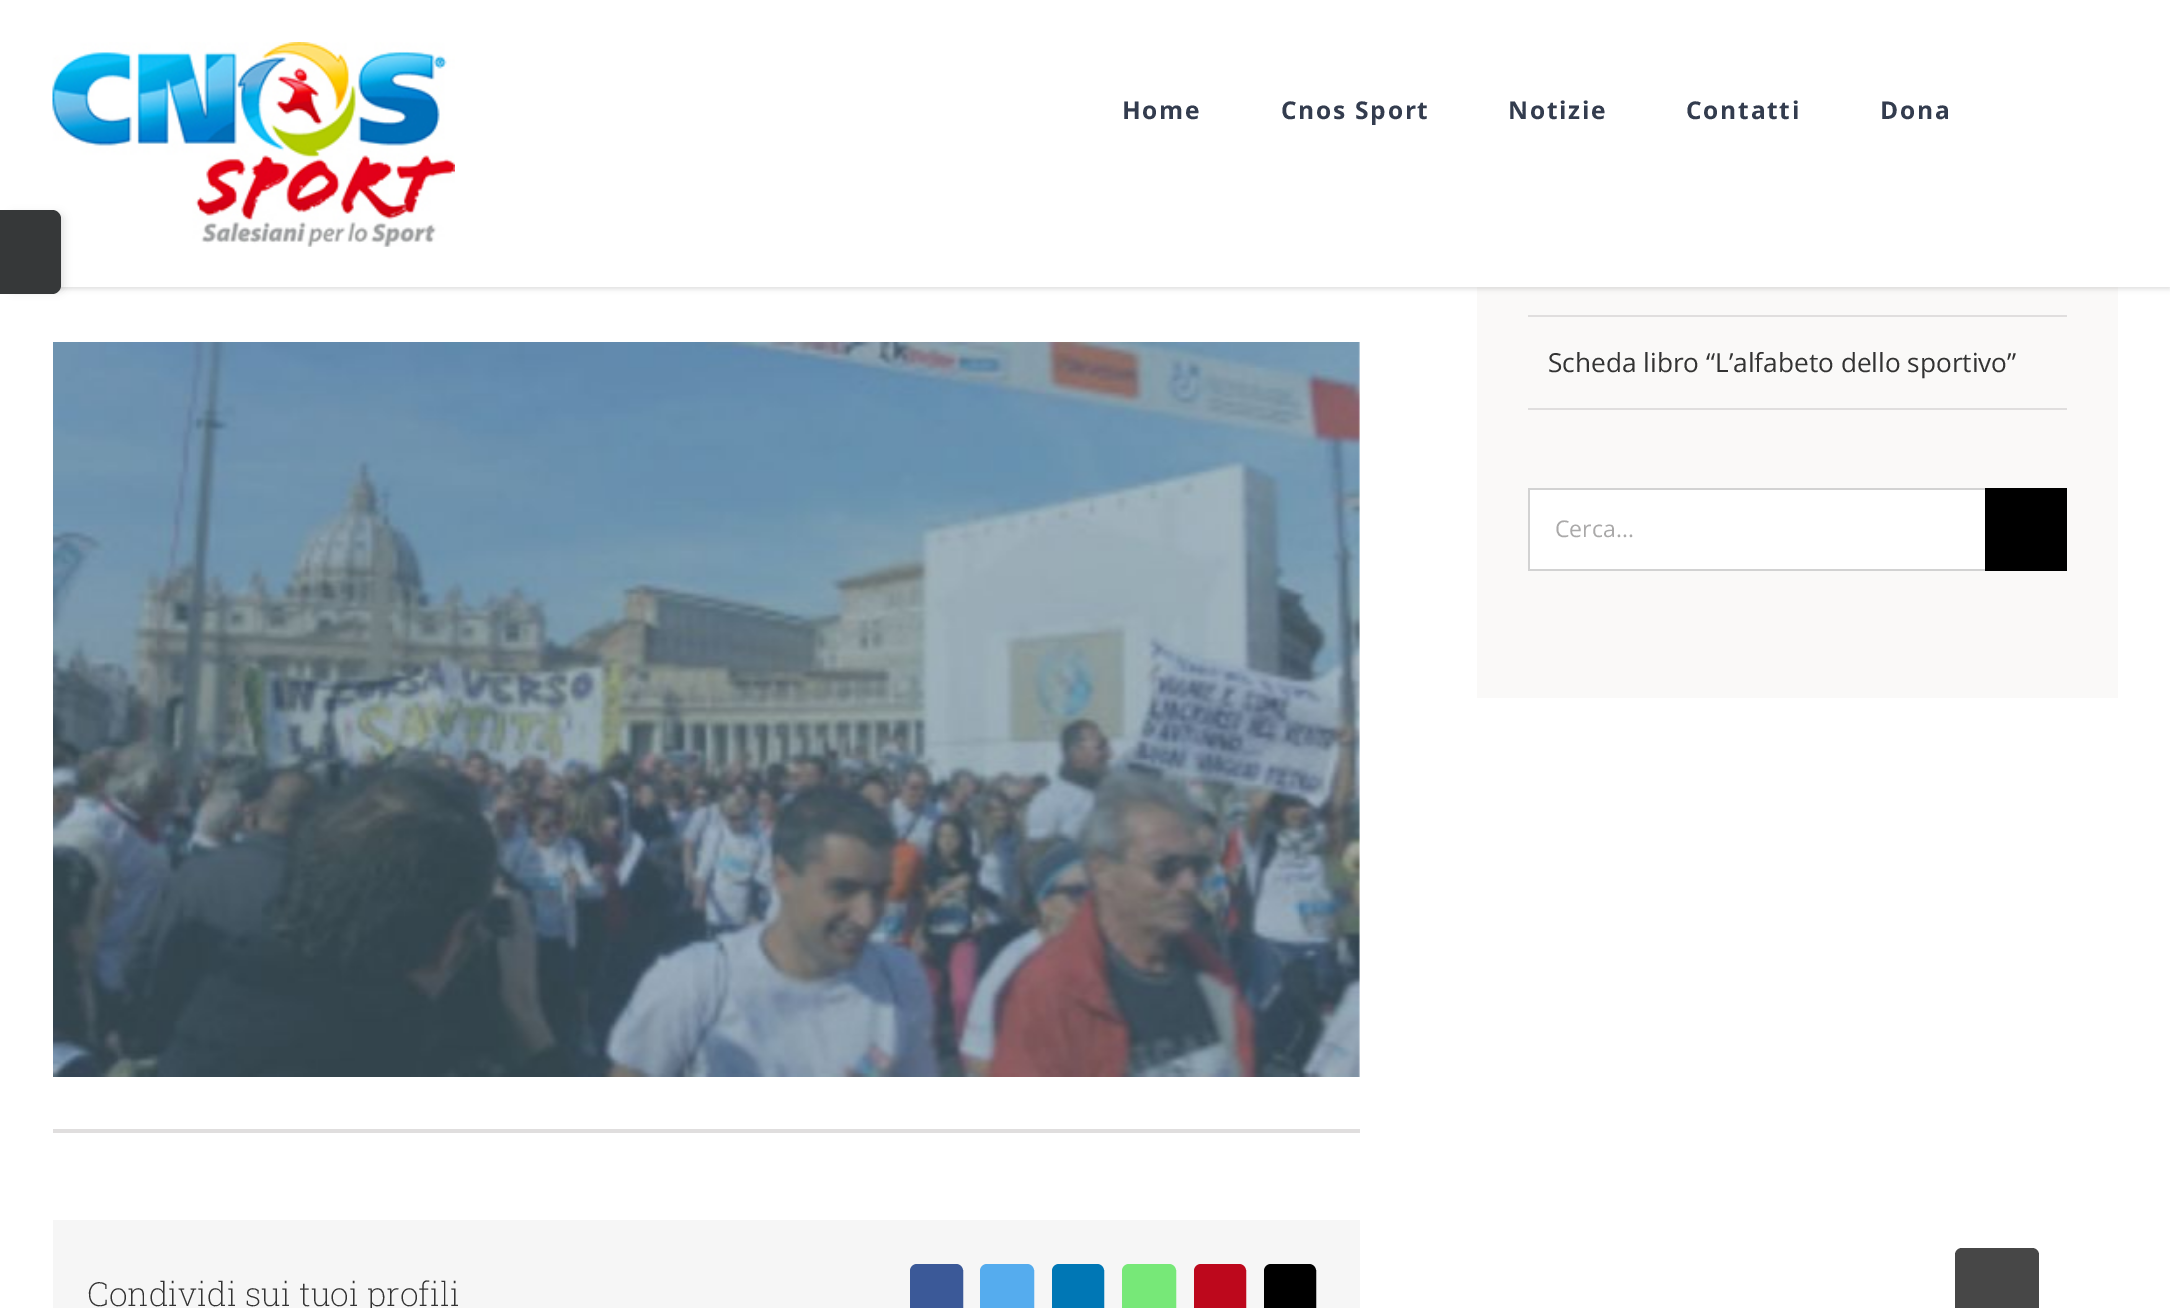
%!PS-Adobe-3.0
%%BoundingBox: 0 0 2170 1308
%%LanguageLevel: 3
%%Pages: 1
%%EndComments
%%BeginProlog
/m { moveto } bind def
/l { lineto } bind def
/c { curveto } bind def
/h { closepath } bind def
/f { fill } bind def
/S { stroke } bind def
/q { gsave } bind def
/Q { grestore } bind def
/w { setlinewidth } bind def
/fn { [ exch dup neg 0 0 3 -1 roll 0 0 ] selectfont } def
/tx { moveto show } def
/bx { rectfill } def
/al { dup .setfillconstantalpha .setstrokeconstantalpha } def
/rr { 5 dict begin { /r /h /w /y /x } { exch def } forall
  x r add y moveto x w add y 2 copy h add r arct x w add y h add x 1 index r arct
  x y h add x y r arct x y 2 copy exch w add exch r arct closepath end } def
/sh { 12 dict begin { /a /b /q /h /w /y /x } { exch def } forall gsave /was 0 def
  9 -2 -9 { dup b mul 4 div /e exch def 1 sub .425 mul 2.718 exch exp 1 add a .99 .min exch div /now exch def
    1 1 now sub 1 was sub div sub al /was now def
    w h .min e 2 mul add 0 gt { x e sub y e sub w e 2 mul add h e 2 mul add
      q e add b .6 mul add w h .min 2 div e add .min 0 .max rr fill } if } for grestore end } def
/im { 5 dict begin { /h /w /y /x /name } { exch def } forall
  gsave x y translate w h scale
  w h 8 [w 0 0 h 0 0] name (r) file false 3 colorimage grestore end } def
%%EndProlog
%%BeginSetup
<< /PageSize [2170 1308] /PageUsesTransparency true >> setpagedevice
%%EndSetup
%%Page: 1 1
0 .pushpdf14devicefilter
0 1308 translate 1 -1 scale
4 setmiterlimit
1 setgray
0 0 2170 1308 bx
0.98 0.976 0.973 setrgbcolor
1477 287 641 411 bx
0 setgray
0 2 2170 287 0 2.5 0.12 sh
1 setgray
0 0 2170 287 bx
(image0.raw) 52 42 403 205 im
/OpenSans-Bold 24.5 fn
0.2 0.235 0.306 setrgbcolor
1122 119 m 1.75 0 (Home) ashow
1281 119 m 1.75 0 (Cnos Sport) ashow
1508 119 m 1.75 0 (Notizie) ashow
1686 119 m 1.75 0 (Contatti) ashow
1880 119 m 1.75 0 (Dona) ashow
0 setgray
9 214 54 77 5 4.5 0.14 sh
0.212 0.22 0.224 setrgbcolor
0 210 m 52 210 l 57 210 61 214 61 219 c 61 285 l 61 290 57 294 52 294 c 0 294 l h f
0.878 0.871 0.871 setrgbcolor
1528 315 539 2 bx
1528 408 539 2 bx
/OpenSans-Regular 26.25 fn
0.2 setgray
(Scheda libro “L’alfabeto dello sportivo”) 1548 372 tx
1 setgray
1530 490 455 79 bx
0.824 setgray
1528 488 457 2 bx
1528 569 457 2 bx
1528 488 2 83 bx
/OpenSans-Regular 23 fn
0.667 0.663 0.663 setrgbcolor
(Cerca...) 1555 537 tx
0 setgray
1985 488 82 83 bx
(image1.raw) 53 342 1307 735 im
0.878 0.871 0.871 setrgbcolor
53 1129 1307 4 bx
0.965 setgray
53 1220 1307 88 bx
/RobotoSlab-ExtraLight 33.25 fn
0.2 setgray
(Condividi sui tuoi profili) 87 1306 tx
0.231 0.349 0.596 setrgbcolor
911 1265 51 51 6 rr q f Q
2 w
S
0.333 0.675 0.933 setrgbcolor
981 1265 52 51 6 rr q f Q
S
0 0.467 0.71 setrgbcolor
1053 1265 50 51 6 rr q f Q
S
0.467 0.91 0.471 setrgbcolor
1123 1265 52 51 6 rr q f Q
S
0.741 0.031 0.11 setrgbcolor
1195 1265 50 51 6 rr q f Q
S
0 setgray
1265 1265 50 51 6 rr q f Q
S
0.278 setgray
1962 1248 m 2032 1248 l 2036 1248 2039 1251 2039 1255 c 2039 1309 l 1955 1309 l 1955 1255 l 1955 1251 1958 1248 1962 1248 c h f
.poppdf14devicefilter showpage
%%EOF
